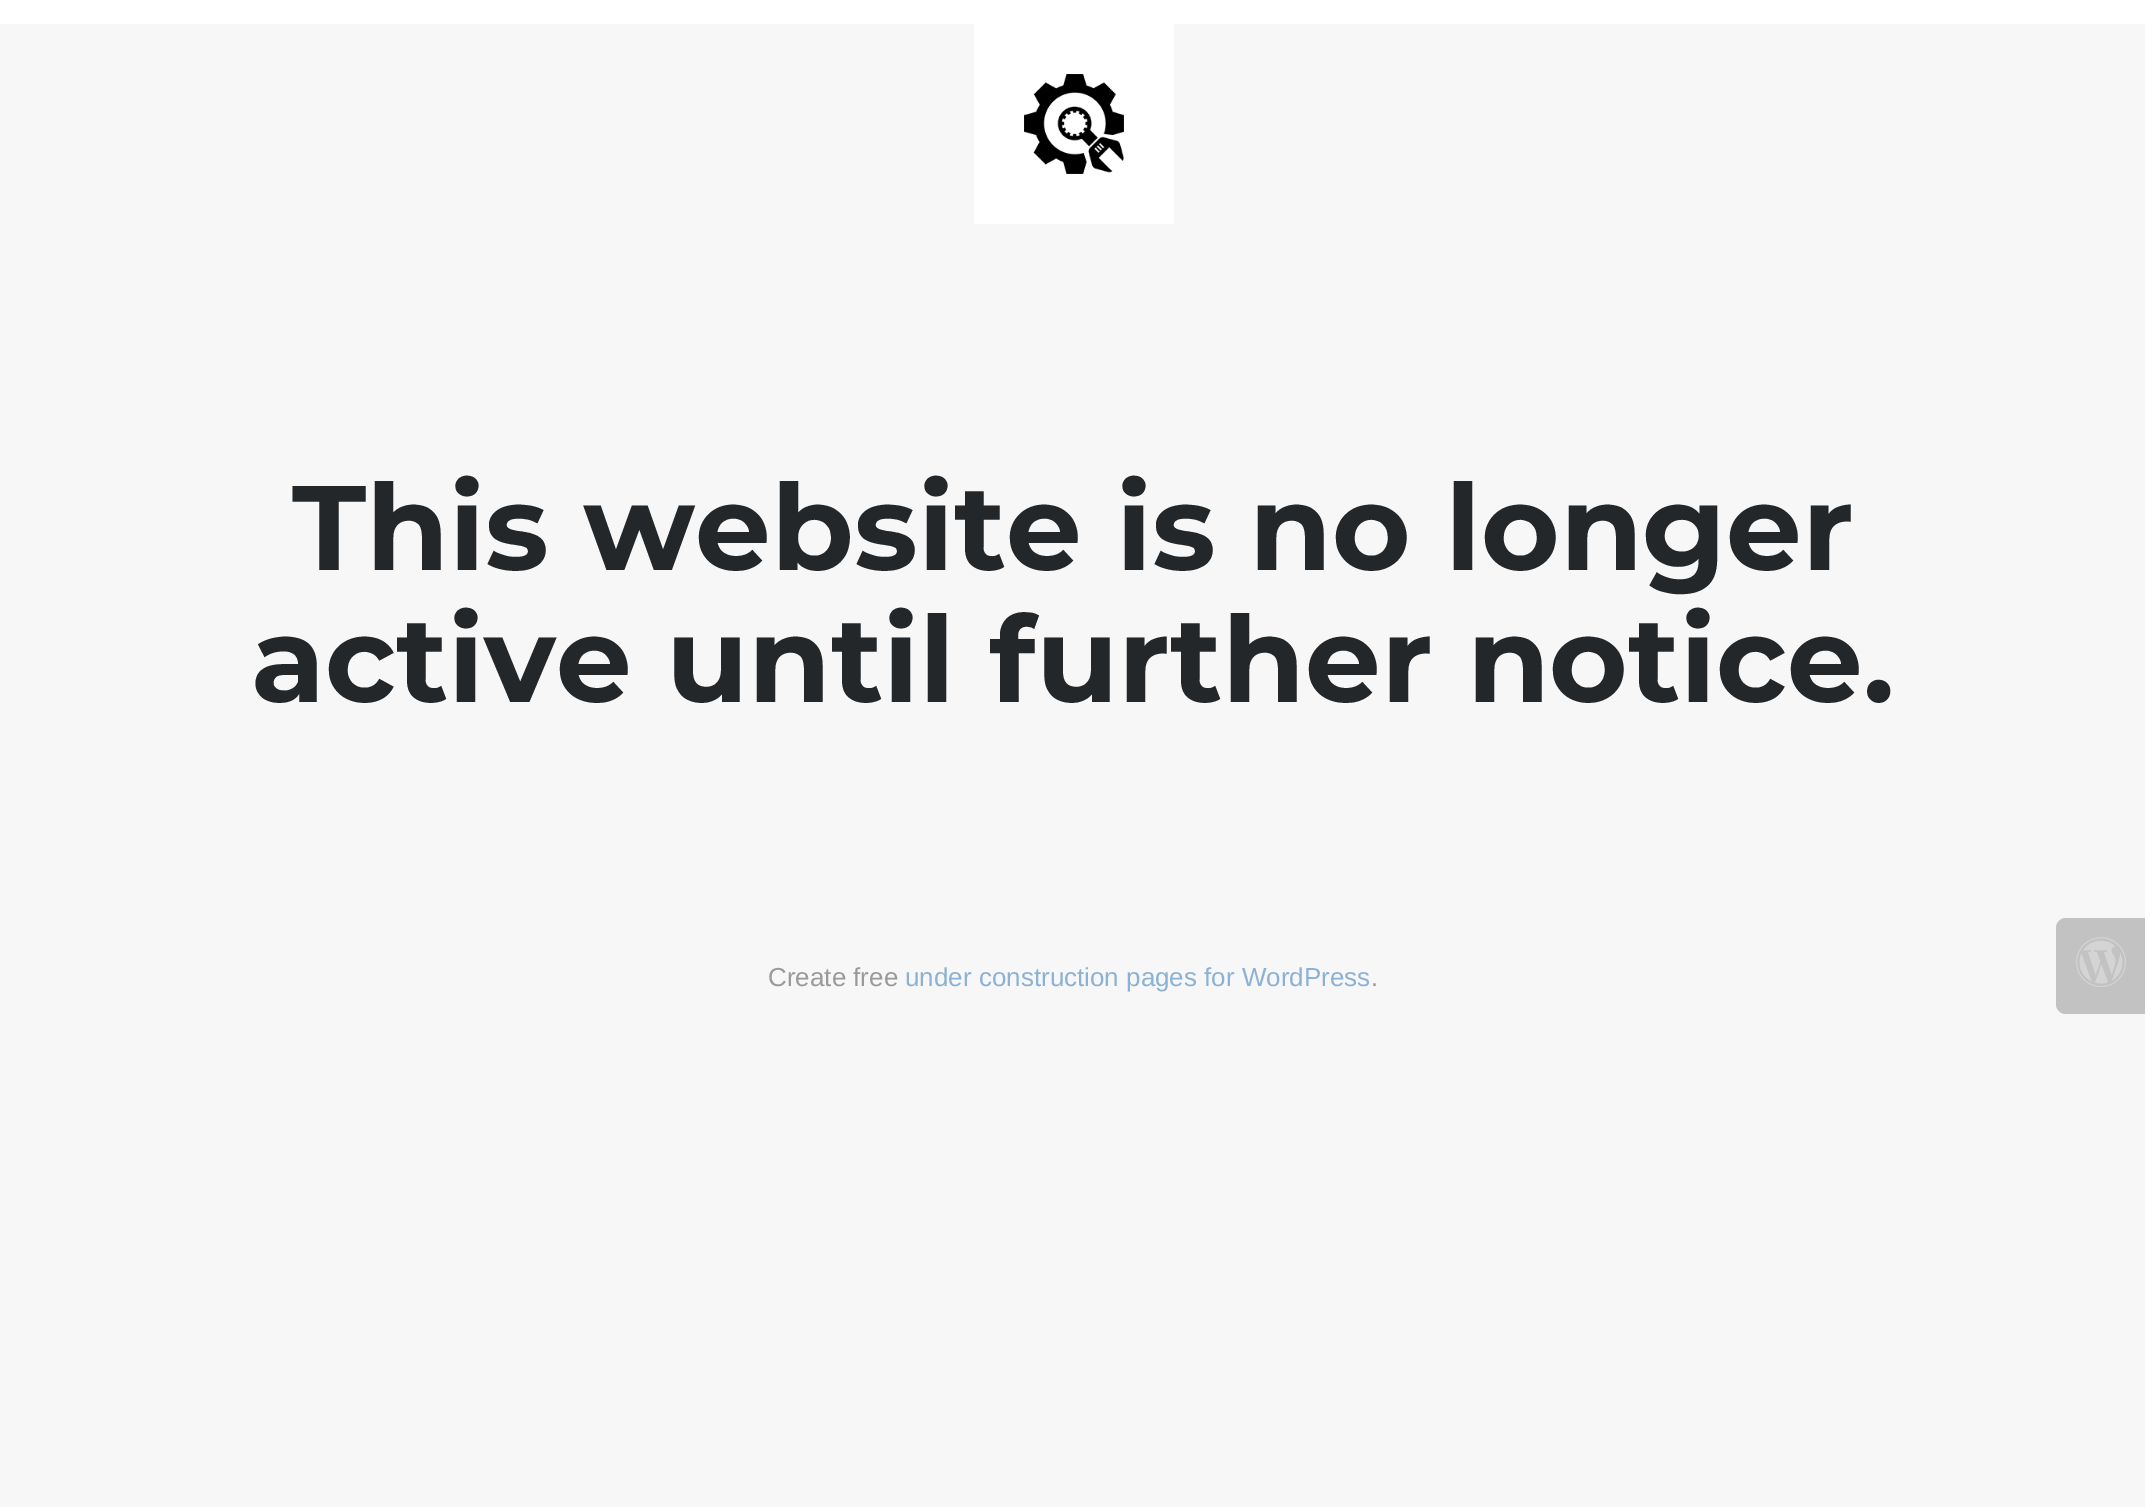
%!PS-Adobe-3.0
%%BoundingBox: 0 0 2145 1507
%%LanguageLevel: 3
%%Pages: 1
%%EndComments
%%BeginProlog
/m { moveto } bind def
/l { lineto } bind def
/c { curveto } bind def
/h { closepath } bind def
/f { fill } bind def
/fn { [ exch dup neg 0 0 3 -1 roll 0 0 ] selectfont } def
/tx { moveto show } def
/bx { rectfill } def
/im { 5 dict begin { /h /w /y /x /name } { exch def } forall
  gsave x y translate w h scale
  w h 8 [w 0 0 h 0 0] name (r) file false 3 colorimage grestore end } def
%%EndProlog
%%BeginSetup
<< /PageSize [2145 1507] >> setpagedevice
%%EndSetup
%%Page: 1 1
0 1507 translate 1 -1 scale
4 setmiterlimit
0.969 setgray
0 0 2145 1507 bx
1 setgray
0 0 2145 24 bx
974 24 200 200 bx
(image0.raw) 1024 74 100 100 im
/Montserrat-Thin 120 fn
0.137 0.153 0.165 setrgbcolor
(This website is no longer) 292 570 tx
(active until further notice.) 251 702 tx
/LiberationSans-Regular 26 fn
0.604 setgray
(Create free) 768 986 tx
0.545 0.698 0.831 setrgbcolor
(under construction pages for WordPress) 905 986 tx
0.604 setgray
(.) 1371 986 tx
0.761 setgray
2066 918 m 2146 918 l 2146 1014 l 2066 1014 l 2060.5 1014 2056 1009.5 2056 1004 c 2056 928 l 2056 922.5 2060.5 918 2066 918 c h f
(image1.raw) 2076 937 50 50 im
showpage
%%EOF
